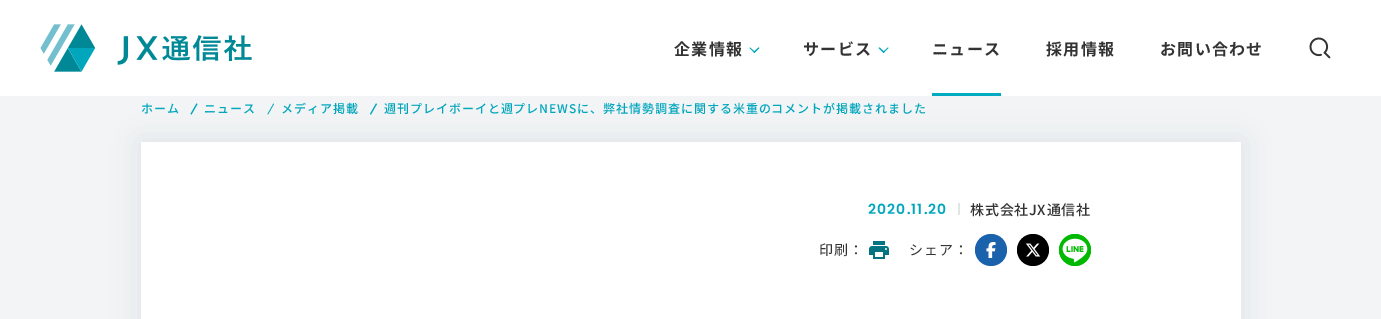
%!PS-Adobe-3.0
%%BoundingBox: 0 0 1381 319
%%LanguageLevel: 3
%%Pages: 1
%%EndComments
%%BeginProlog
/m { moveto } bind def
/l { lineto } bind def
/h { closepath } bind def
/f { fill } bind def
/fn { [ exch dup neg 0 0 3 -1 roll 0 0 ] selectfont } def
/bx { rectfill } def
/al { dup .setfillconstantalpha .setstrokeconstantalpha } def
/ci { newpath 0 360 arc closepath } def
/rr { 5 dict begin { /r /h /w /y /x } { exch def } forall
  x r add y moveto x w add y 2 copy h add r arct x w add y h add x 1 index r arct
  x y h add x y r arct x y 2 copy exch w add exch r arct closepath end } def
/sh { 12 dict begin { /a /b /q /h /w /y /x } { exch def } forall gsave /was 0 def
  9 -2 -9 { dup b mul 4 div /e exch def 1 sub .425 mul 2.718 exch exp 1 add a .99 .min exch div /now exch def
    1 1 now sub 1 was sub div sub al /was now def
    w h .min e 2 mul add 0 gt { x e sub y e sub w e 2 mul add h e 2 mul add
      q e add b .6 mul add w h .min 2 div e add .min 0 .max rr fill } if } for grestore end } def
/im { 5 dict begin { /h /w /y /x /name } { exch def } forall
  gsave x y translate w h scale
  w h 8 [w 0 0 h 0 0] name (r) file false 3 colorimage grestore end } def
%%EndProlog
%%BeginSetup
<< /PageSize [1381 319] /PageUsesTransparency true >> setpagedevice
%%EndSetup
%%Page: 1 1
0 .pushpdf14devicefilter
0 319 translate 1 -1 scale
4 setmiterlimit
0.949 0.957 0.961 setrgbcolor
0 0 1381 319 bx
1 setgray
0 0 1381 96 bx
(image0.raw) 40 24 212 48 im
/NotoSansJP-Bold 16 fn
0.2 setgray
674 55 m 1.25 0 (企業情報) ashow
0 0.651 0.737 setrgbcolor
753.5 52 m 758.5 47.5 l 759.5 48 l 754.5 53 l h f
749.5 48 m 750 47.5 l 755 52 l 754.5 53 l h f
0.2 setgray
803 55 m 1.25 0 (サービス) ashow
0 0.651 0.737 setrgbcolor
883 52 m 888 47.5 l 888.5 48 l 883.5 53 l h f
878.5 48 m 879.5 47.5 l 884.5 52 l 883.5 53 l h f
0.2 setgray
932 55 m 1.25 0 (ニュース) ashow
0 0.671 0.757 setrgbcolor
932 93 69 3 bx
0.2 setgray
1046 55 m 1.25 0 (採用情報) ashow
1160 55 m 1.25 0 (お問い合わせ) ashow
(image1.raw) 1309 37 22 22 im
0.169 0.267 0.365 setrgbcolor
141 142 1100 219 0 14 0.1 sh
/NotoSansJP-Medium 12 fn
0 0.651 0.737 setrgbcolor
141 113 m 0.95 0 (ホーム) ashow
196.5 103.5 m 197.5 104 l 191.5 114.5 l 190.5 114 l h f
204 113 m 0.95 0 (ニュース) ashow
273.5 103.5 m 274 104 l 268 114.5 l 267.5 114 l h f
281 113 m 0.95 0 (メディア掲載) ashow
376 103.5 m 377 104 l 371 114.5 l 370 114 l h f
384 113 m 0.95 0 (週刊プレイボーイと週プレNEWSに、弊社情勢調査に関する米重のコメントが掲載されました) ashow
1 setgray
141 142 1100 177 bx
/Poppins-SemiBold 14 fn
0 0.651 0.737 setrgbcolor
868 214 m 1.1 0 (2020.11.20) ashow
0.882 0.898 0.898 setrgbcolor
958 203 2 12 bx
/NotoSansJP-Medium 14 fn
0.2 setgray
970 215 m 0.75 0 (株式会社JX通信社) ashow
/NotoSansJP-Regular 14 fn
819 255 m 1.1 0 (印刷：) ashow
(image2.raw) 869 241 20 18 im
909 255 m 1.1 0 (シェア：) ashow
0.102 0.388 0.675 setrgbcolor
991 250 16 ci f
(image3.raw) 986 242 10 16 im
0 setgray
1033 250 16 ci f
(image4.raw) 1026 243 15 14 im
(image5.raw) 1059 234 32 32 im
.poppdf14devicefilter showpage
%%EOF
